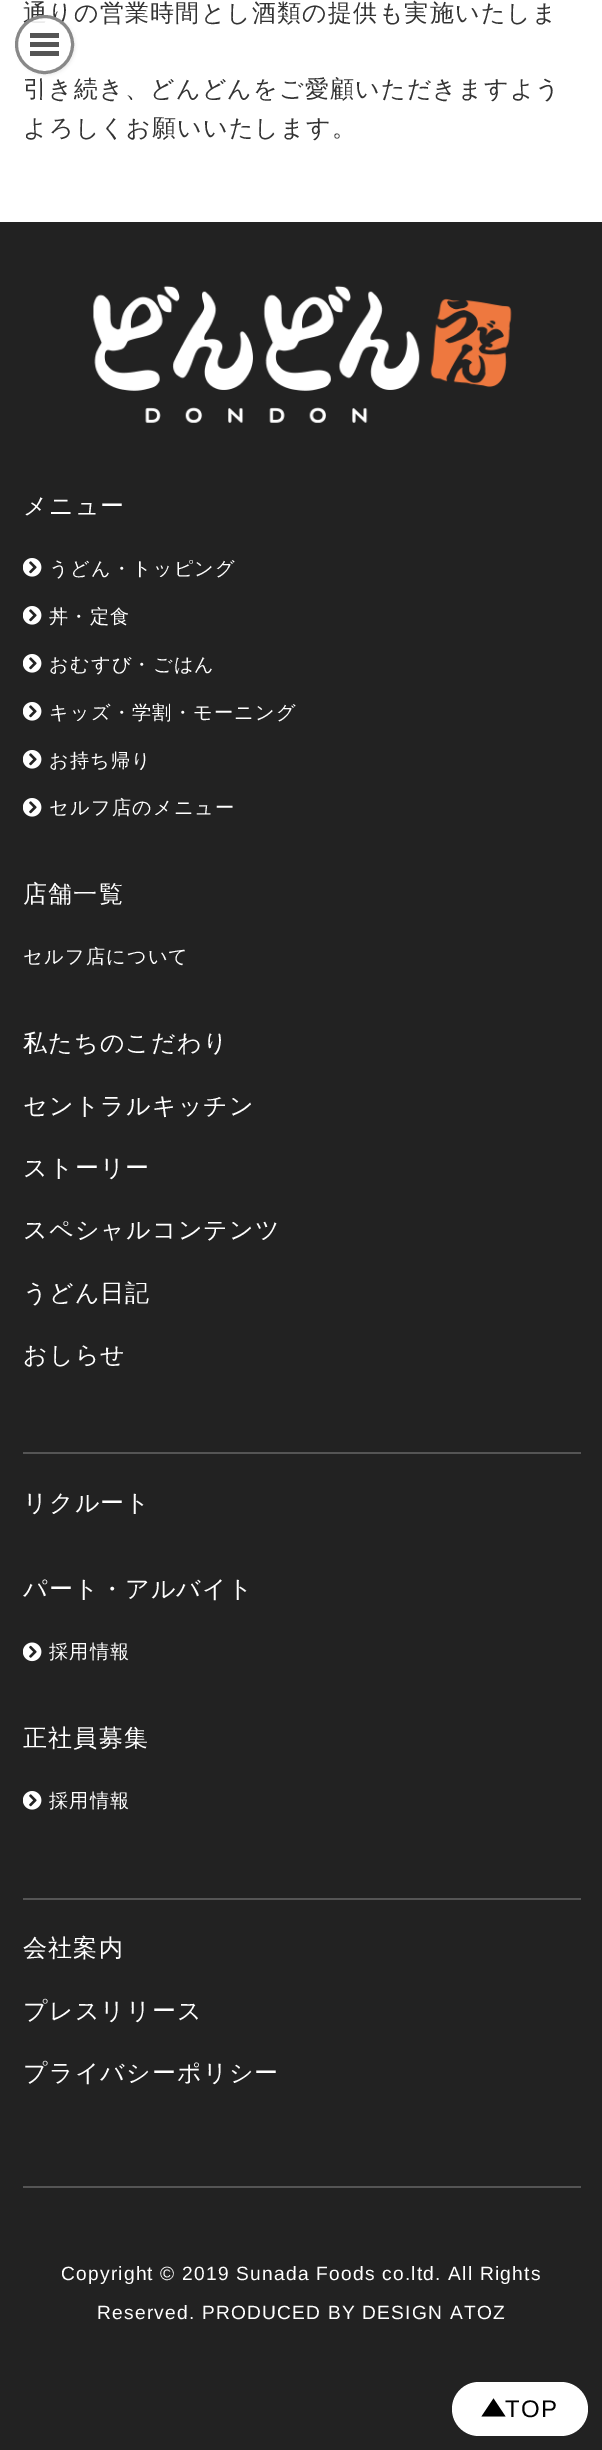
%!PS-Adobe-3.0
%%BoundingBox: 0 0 602 2450
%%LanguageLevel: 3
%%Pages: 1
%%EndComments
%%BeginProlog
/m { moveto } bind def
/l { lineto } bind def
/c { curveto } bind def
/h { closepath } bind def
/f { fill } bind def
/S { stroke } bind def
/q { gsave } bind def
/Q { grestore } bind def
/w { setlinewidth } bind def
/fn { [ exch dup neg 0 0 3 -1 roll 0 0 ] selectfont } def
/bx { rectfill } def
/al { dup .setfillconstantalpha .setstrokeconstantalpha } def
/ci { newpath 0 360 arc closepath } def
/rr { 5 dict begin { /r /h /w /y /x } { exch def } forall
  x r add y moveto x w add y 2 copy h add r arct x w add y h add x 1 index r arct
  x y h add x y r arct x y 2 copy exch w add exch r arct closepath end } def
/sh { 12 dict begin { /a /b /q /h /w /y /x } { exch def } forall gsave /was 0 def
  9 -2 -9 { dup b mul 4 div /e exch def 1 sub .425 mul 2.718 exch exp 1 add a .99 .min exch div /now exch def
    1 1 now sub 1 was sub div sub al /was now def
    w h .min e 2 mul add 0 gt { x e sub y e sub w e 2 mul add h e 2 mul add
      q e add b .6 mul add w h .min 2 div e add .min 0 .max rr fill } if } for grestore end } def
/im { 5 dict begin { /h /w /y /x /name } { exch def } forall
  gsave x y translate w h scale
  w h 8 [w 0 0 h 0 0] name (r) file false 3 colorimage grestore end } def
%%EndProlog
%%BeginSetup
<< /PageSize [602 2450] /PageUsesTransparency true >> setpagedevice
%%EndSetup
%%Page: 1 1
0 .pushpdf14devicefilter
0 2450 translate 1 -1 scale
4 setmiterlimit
1 setgray
0 0 602 2450 bx
/WenQuanYiZenHei-Medium 24 fn
0.2 setgray
23 21 m 1.2 0 (通りの営業時間とし酒類の提供も実施いたしま) ashow
23 97 m 1.2 0 (引き続き、どんどんをご愛顧いただきますよう) ashow
23 136 m 1.2 0 (よろしくお願いいたします。) ashow
q
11 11 m 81 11 l 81 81 l 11 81 l h 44.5 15 m 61 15 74 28 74 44.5 c 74 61 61 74 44.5 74 c 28 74 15 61 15 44.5 c 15 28 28 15 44.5 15 c h eoclip newpath
0 setgray
17 17 58 58 29 1.5 0.07 sh
Q
0.9 al
1 setgray
44.5 44.5 28 ci f
1 al
0.533 setgray
3 w
44.5 44.5 28 ci S
0.333 setgray
30 33 29 5 bx
30 42 29 5 bx
30 51 29 5 bx
0.133 setgray
0 222 602 2228 bx
(image0.raw) 93 285 419 138 im
0.333 setgray
23 1452 558 2 bx
1 setgray
23 514 m 1.2 0 (メニュー) ashow
(image1.raw) 23 558 19 19 im
/WenQuanYiZenHei-Medium 19.2 fn
49 575 m 1.2 0 (うどん・トッピング) ashow
(image1.raw) 23 606 19 19 im
49 623 m 1.2 0 (丼・定食) ashow
(image1.raw) 23 654 19 19 im
49 671 m 1.2 0 (おむすび・ごはん) ashow
(image1.raw) 23 702 19 19 im
49 719 m 1.2 0 (キッズ・学割・モーニング) ashow
(image1.raw) 23 750 19 19 im
49 767 m 1.2 0 (お持ち帰り) ashow
(image1.raw) 23 798 19 19 im
49 814 m 1.2 0 (セルフ店のメニュー) ashow
/WenQuanYiZenHei-Medium 24 fn
23 902 m 1.2 0 (店舗一覧) ashow
/WenQuanYiZenHei-Medium 19.2 fn
23 963 m 1.2 0 (セルフ店について) ashow
/WenQuanYiZenHei-Medium 24 fn
23 1051 m 1.2 0 (私たちのこだわり) ashow
23 1114 m 1.2 0 (セントラルキッチン) ashow
23 1176 m 1.2 0 (ストーリー) ashow
23 1238 m 1.2 0 (スペシャルコンテンツ) ashow
23 1301 m 1.2 0 (うどん日記) ashow
23 1363 m 1.2 0 (おしらせ) ashow
0.333 setgray
23 1898 558 2 bx
1 setgray
23 1511 m 1.2 0 (リクルート) ashow
23 1597 m 1.2 0 (パート・アルバイト) ashow
(image2.raw) 23 1642 19 20 im
/WenQuanYiZenHei-Medium 19.2 fn
49 1658 m 1.2 0 (採用情報) ashow
/WenQuanYiZenHei-Medium 24 fn
23 1746 m 1.2 0 (正社員募集) ashow
(image1.raw) 23 1791 19 19 im
/WenQuanYiZenHei-Medium 19.2 fn
49 1807 m 1.2 0 (採用情報) ashow
0.333 setgray
23 2186 558 2 bx
/WenQuanYiZenHei-Medium 24 fn
1 setgray
23 1956 m 1.2 0 (会社案内) ashow
23 2019 m 1.2 0 (プレスリリース) ashow
23 2081 m 1.2 0 (プライバシーポリシー) ashow
/LiberationSans-Regular 19.2 fn
61 2280 m 1.2 0 (Copyright © 2019 Sunada Foods co.ltd. All Rights) ashow
97 2319 m 1.2 0 (Reserved. PRODUCED BY DESIGN ATOZ) ashow
452 2382 136 54 27 rr f
0 setgray
505.5 2416.5 m 481.5 2416.5 l 493.5 2398.5 l h f
/LiberationSans-Regular 24 fn
505 2417 m 1.2 0 (TOP) ashow
.poppdf14devicefilter showpage
%%EOF
